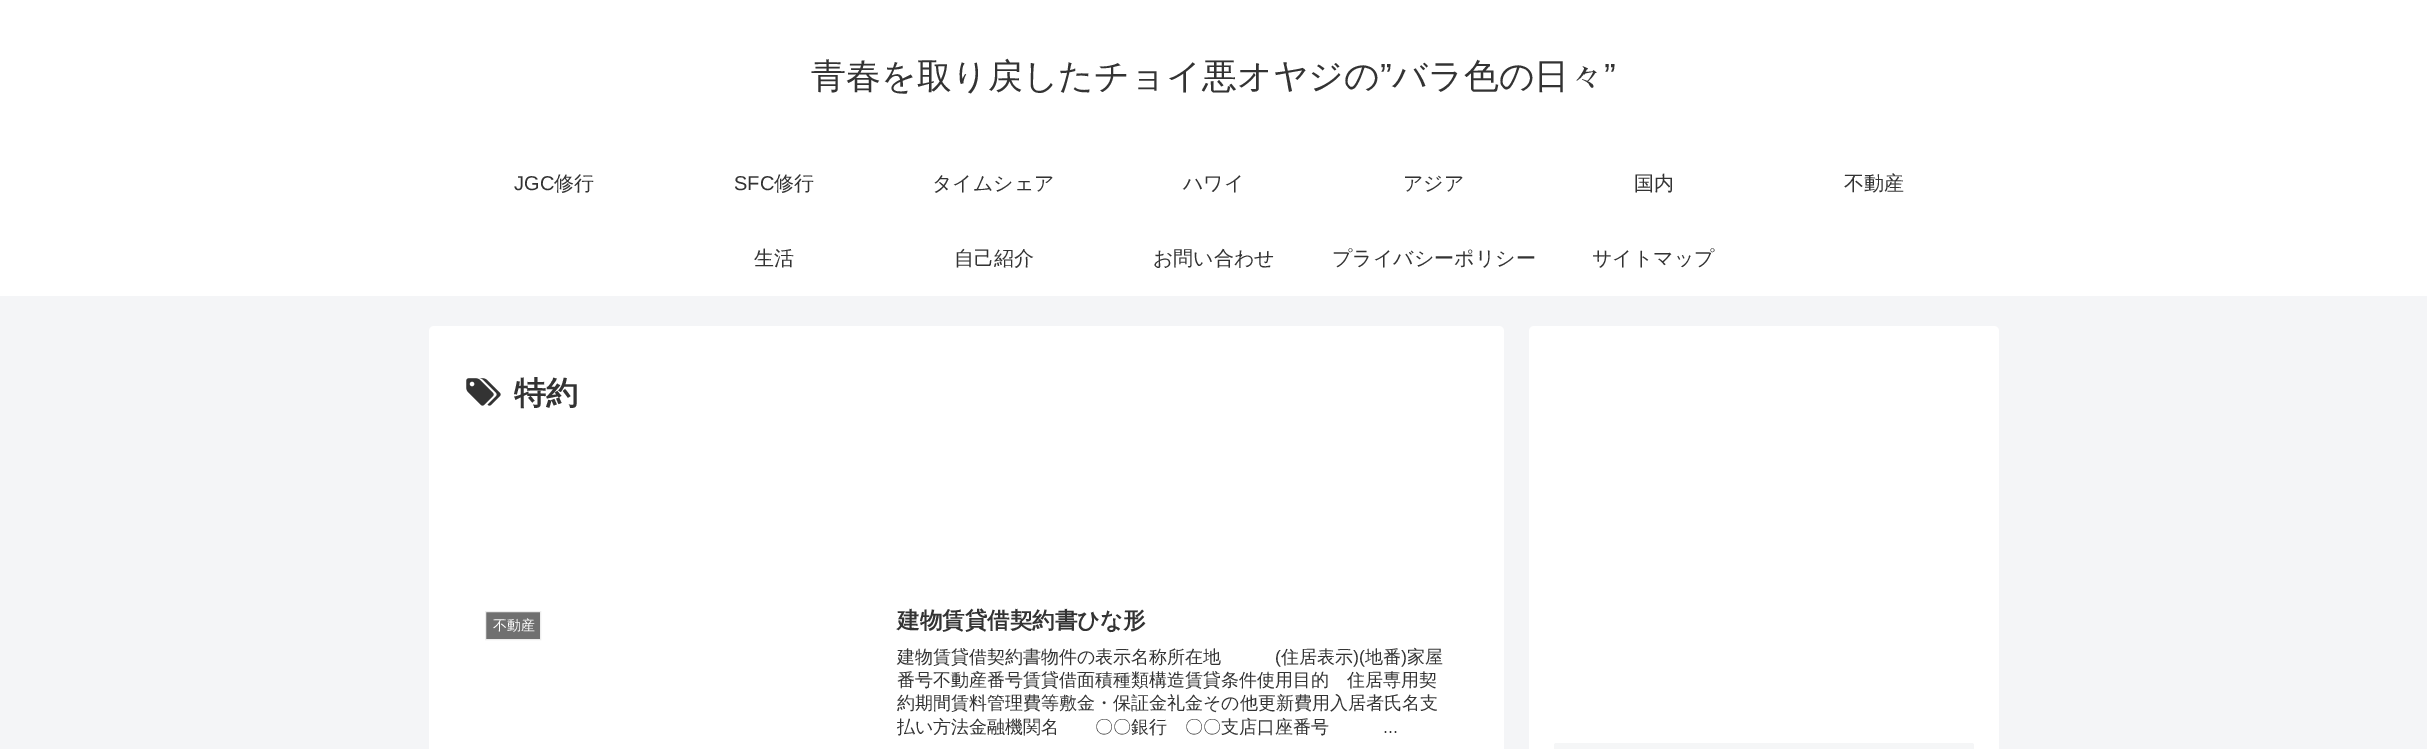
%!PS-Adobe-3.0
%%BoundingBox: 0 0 2427 749
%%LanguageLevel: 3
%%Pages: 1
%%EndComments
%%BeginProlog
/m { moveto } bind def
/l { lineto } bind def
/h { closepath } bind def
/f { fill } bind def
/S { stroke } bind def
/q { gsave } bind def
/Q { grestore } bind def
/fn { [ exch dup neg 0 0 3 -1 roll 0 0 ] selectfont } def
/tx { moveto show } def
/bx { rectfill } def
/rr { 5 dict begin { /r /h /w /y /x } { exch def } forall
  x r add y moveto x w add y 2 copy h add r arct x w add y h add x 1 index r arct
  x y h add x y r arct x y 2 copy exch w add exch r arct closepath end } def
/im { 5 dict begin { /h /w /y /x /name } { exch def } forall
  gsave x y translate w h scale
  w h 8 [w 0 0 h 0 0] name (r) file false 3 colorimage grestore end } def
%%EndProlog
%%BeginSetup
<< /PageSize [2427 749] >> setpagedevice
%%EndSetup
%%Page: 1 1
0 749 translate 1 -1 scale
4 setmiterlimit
0.957 0.961 0.969 setrgbcolor
0 0 2427 749 bx
1 setgray
0 0 2427 296 bx
/WenQuanYiZenHei-Medium 35 fn
0.2 setgray
(青春を取り戻したチョイ悪オヤジの) 811 88 tx
/LiberationSans-Regular 35 fn
(”) 1380 88 tx
/WenQuanYiZenHei-Medium 35 fn
(バラ色の日々) 1392 88 tx
/LiberationSans-Regular 35 fn
(”) 1604 88 tx
/LiberationSans-Regular 20 fn
(JGC) 514 190 tx
/WenQuanYiZenHei-Medium 20 fn
(修行) 554 190 tx
/LiberationSans-Regular 20 fn
(SFC) 734 190 tx
/WenQuanYiZenHei-Medium 20 fn
(修行) 774 190 tx
(タイムシェア) 932 190 tx
(ハワイ) 1183 190 tx
(アジア) 1403 190 tx
(国内) 1634 190 tx
(不動産) 1844 190 tx
(生活) 754 265 tx
(自己紹介) 954 265 tx
(お問い合わせ) 1153 265 tx
(プライバシーポリシー) 1332 265 tx
(サイトマップ) 1592 265 tx
1 setgray
429 326 1075 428 5 rr f
(image0.raw) 466 378 35 28 im
/WenQuanYiZenHei-Bold 32 fn
0.2 setgray
(特約) 514 404 tx
0.439 setgray
485.5 611.5 m 540.5 611.5 l 540.5 639.5 l 485.5 639.5 l h q f Q
0.933 setgray
S
/WenQuanYiZenHei-Medium 14 fn
1 setgray
(不動産) 493 630 tx
/WenQuanYiZenHei-Bold 22.5 fn
0.2 setgray
(建物賃貸借契約書ひな形) 897 628 tx
/WenQuanYiZenHei-Medium 18 fn
(建物賃貸借契約書物件の表示名称所在地) 897 663 tx
/LiberationSans-Regular 18 fn
(\() 1275 663 tx
/WenQuanYiZenHei-Medium 18 fn
(住居表示) 1281 663 tx
/LiberationSans-Regular 18 fn
(\)\() 1353 663 tx
/WenQuanYiZenHei-Medium 18 fn
(地番) 1365 663 tx
/LiberationSans-Regular 18 fn
(\)) 1401 663 tx
/WenQuanYiZenHei-Medium 18 fn
(家屋) 1407 663 tx
(番号不動産番号賃貸借面積種類構造賃貸条件使用目的　住居専用契) 897 686 tx
(約期間賃料管理費等敷金・保証金礼金その他更新費用入居者氏名支) 897 709 tx
(払い方法金融機関名　　〇〇銀行　〇〇支店口座番号) 897 733 tx
/LiberationSans-Regular 18 fn
(...) 1383 733 tx
1 setgray
1529 326 470 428 5 rr f
0.961 0.965 0.969 setrgbcolor
1554 743 420 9 2.5 rr f
showpage
%%EOF
